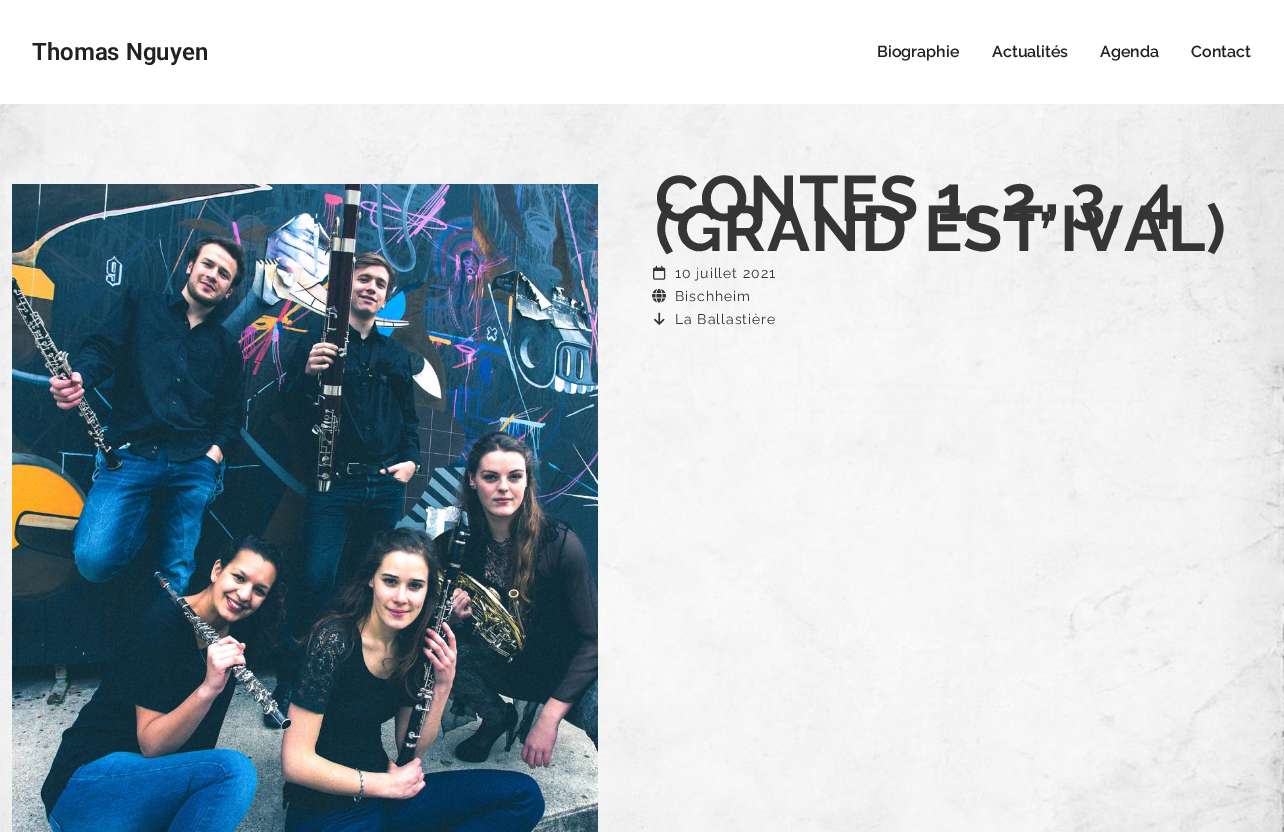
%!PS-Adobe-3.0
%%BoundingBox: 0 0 1284 832
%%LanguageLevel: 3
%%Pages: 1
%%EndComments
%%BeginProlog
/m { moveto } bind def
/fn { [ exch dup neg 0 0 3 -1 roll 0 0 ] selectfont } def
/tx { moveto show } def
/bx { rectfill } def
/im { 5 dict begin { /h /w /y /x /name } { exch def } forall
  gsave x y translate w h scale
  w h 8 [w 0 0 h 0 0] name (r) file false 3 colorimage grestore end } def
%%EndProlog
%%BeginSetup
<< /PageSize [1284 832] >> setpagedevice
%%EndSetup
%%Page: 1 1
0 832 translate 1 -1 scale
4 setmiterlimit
1 setgray
0 0 1284 832 bx
(image0.raw) 0 104 1284 728 im
/Roboto-SemiBold 24 fn
0.129 setgray
(Thomas Nguyen) 32 60 tx
/Raleway-SemiBold 16 fn
(Biographie) 877 57 tx
(Actualités) 992 57 tx
(Agenda) 1100 57 tx
(Contact) 1191 57 tx
(image1.raw) 12 184 586 648 im
/Raleway-Bold 64 fn
0.208 setgray
655 221 m 1 0 (CONTES 1, 2, 3, 4) ashow
655 251 m 1 0 (\(GRAND EST’IVAL\)) ashow
(image2.raw) 653 265 13 15 im
/Raleway-Regular 14 fn
675 278 m 1 0 (10 juillet 2021) ashow
(image3.raw) 652 288 14 15 im
675 301 m 1 0 (Bischheim) ashow
(image4.raw) 654 312 11 13 im
675 324 m 1 0 (La Ballastière) ashow
showpage
%%EOF
